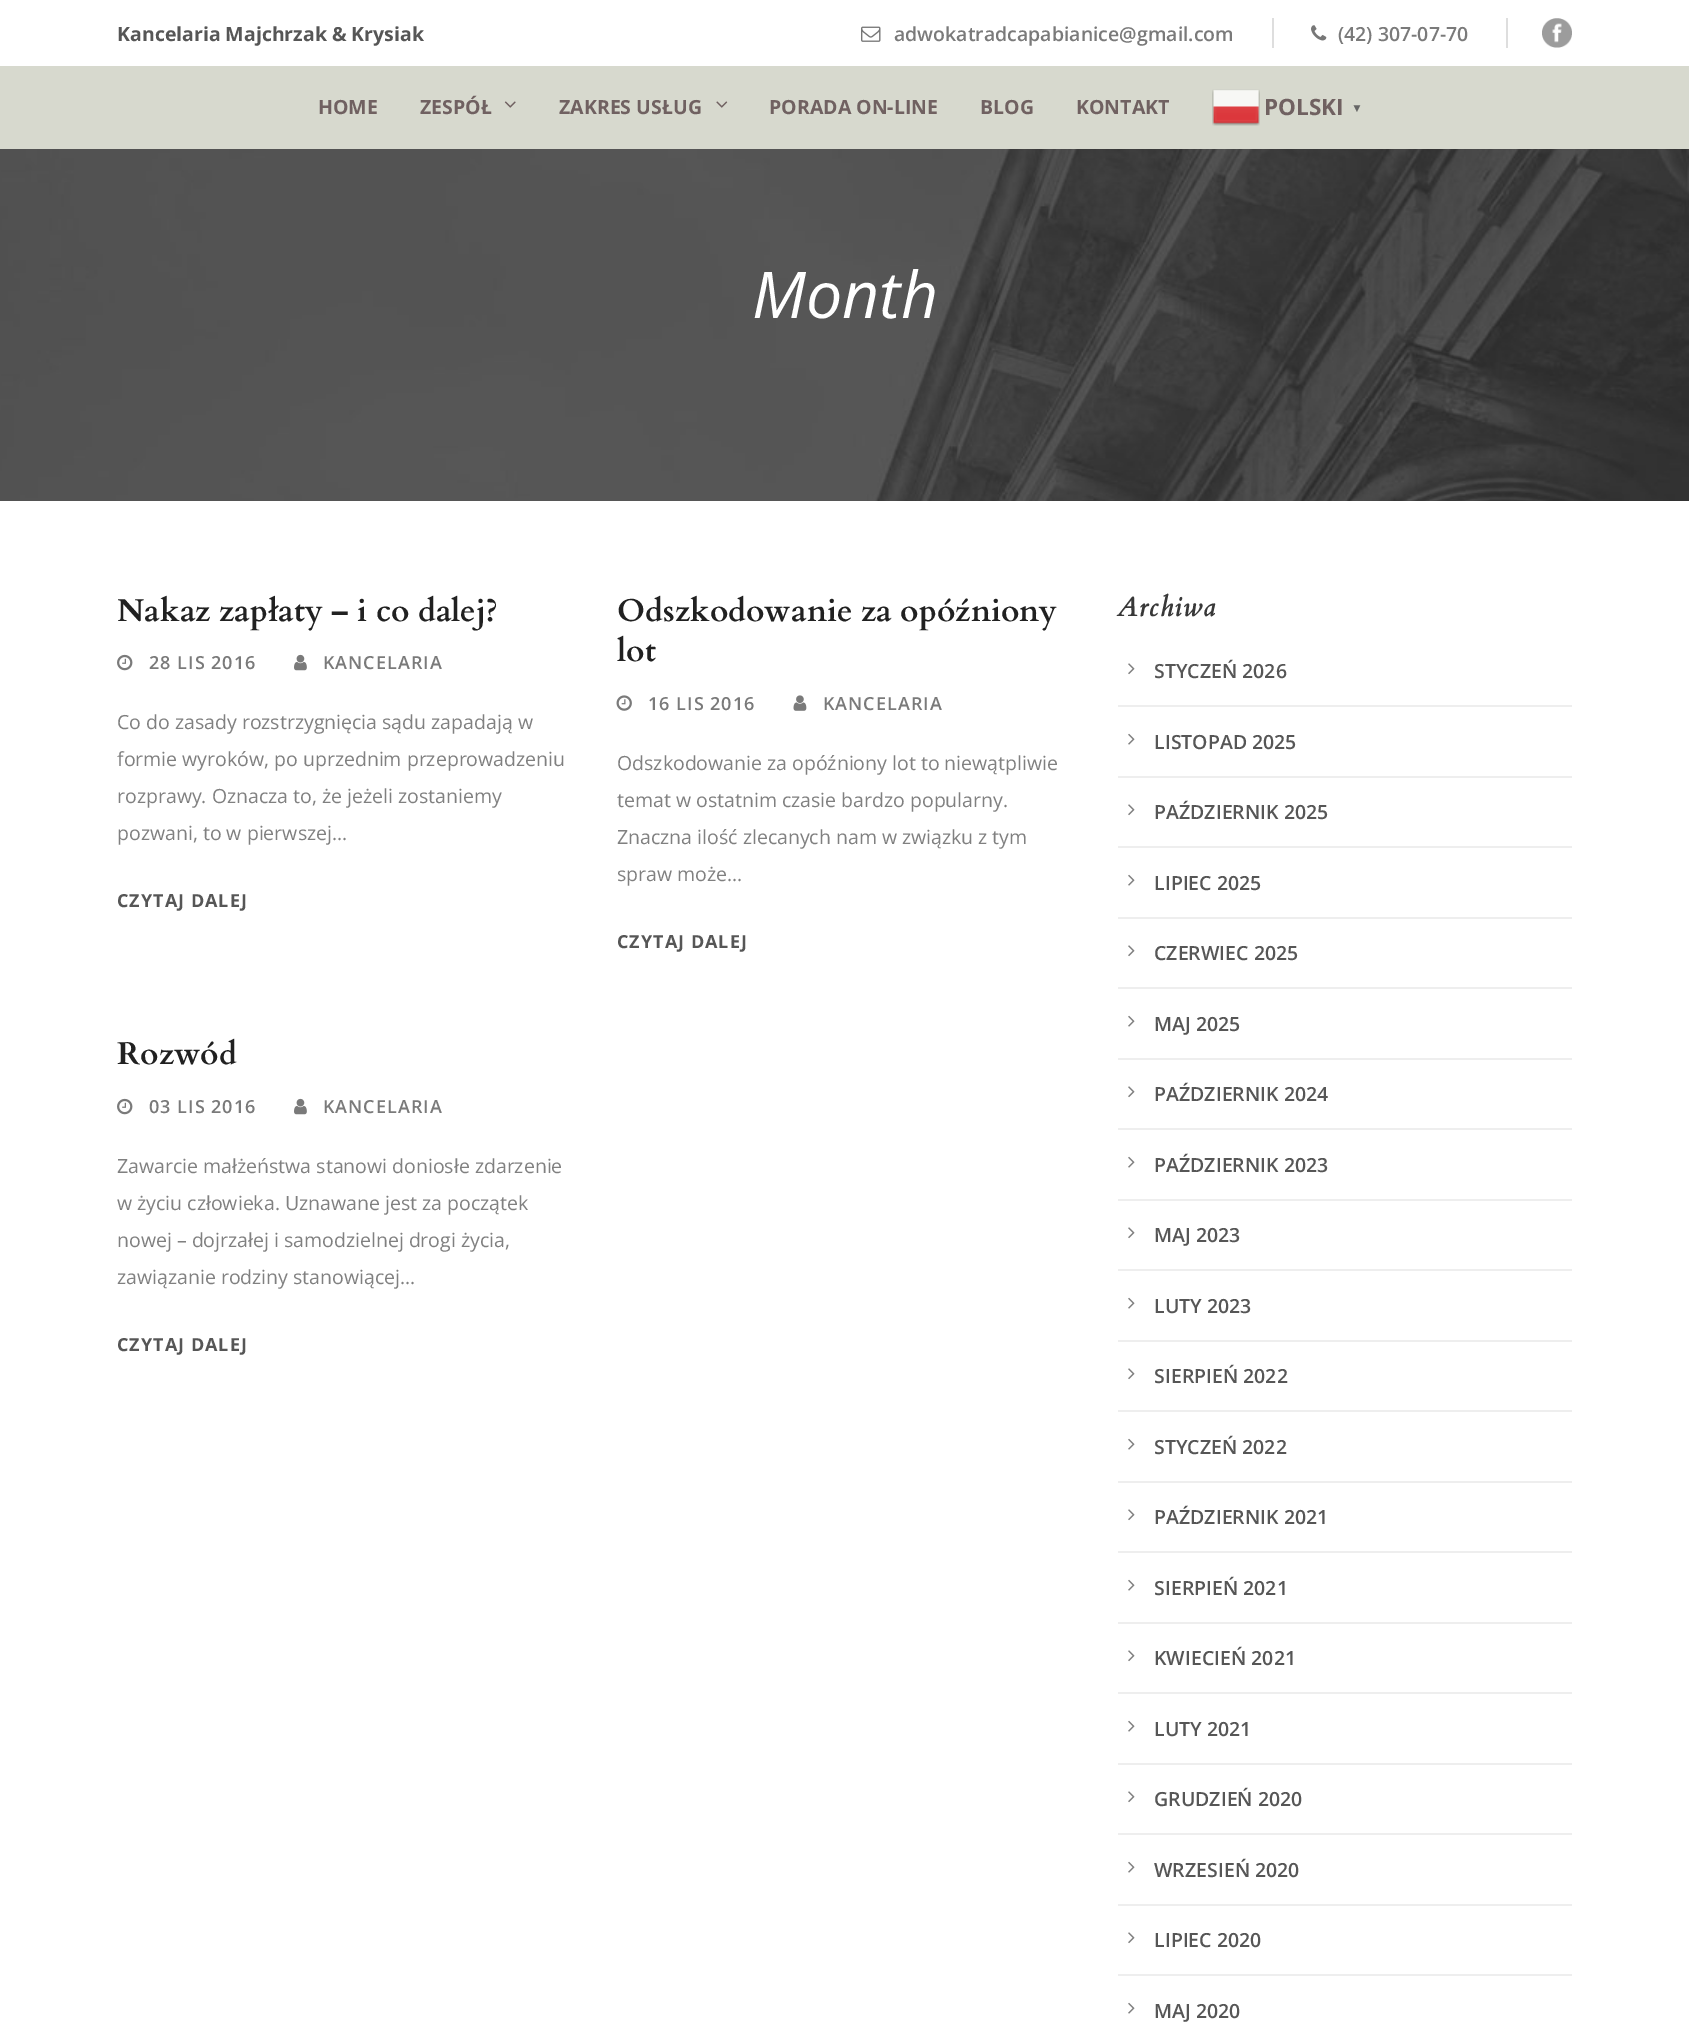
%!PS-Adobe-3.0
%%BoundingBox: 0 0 1689 2023
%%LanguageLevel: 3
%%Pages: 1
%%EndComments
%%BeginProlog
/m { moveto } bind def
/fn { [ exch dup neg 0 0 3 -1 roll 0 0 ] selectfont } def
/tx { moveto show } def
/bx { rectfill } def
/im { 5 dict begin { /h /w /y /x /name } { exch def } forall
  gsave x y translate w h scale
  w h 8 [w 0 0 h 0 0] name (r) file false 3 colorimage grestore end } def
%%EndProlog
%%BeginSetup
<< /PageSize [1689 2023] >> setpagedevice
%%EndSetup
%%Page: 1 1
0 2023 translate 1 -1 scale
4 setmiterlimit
1 setgray
0 0 1689 2023 bx
/OpenSans-Bold 19.5 fn
0.337 setgray
(Kancelaria Majchrzak & Krysiak) 117 41 tx
0.871 setgray
1272 18 2 30 bx
(image0.raw) 861 26 20 16 im
/OpenSans-SemiBold 19.5 fn
0.478 setgray
(adwokatradcapabianice@gmail.com) 894 41 tx
0.871 setgray
1506 18 2 30 bx
(image1.raw) 1311 25 16 16 im
0.478 setgray
(\(42\) 307-07-70) 1338 41 tx
(image2.raw) 1542 18 30 30 im
0.843 0.851 0.808 setrgbcolor
0 66 1689 83 bx
/OpenSans-Bold 19.5 fn
0.439 0.38 0.38 setrgbcolor
(HOME) 318 114 tx
(ZESPÓŁ) 420 114 tx
(image3.raw) 504 101 12 7 im
(ZAKRES USŁUG) 559 114 tx
(image4.raw) 716 101 12 7 im
(PORADA ON-LINE) 769 114 tx
(BLOG) 980 114 tx
(KONTAKT) 1076 114 tx
(image5.raw) 1212 89 48 37 im
/OpenSans-Bold 22.5 fn
(POLSKI) 1264 115 tx
/LiberationSerif-Bold 12 fn
0.4 setgray
(▼) 1351 112 tx
(image6.raw) 0 149 1689 352 im
/OpenSans-Italic 64.5 fn
1 setgray
(Month) 752 318 tx
/Cardo-Bold 31.5 fn
0.129 setgray
(Nakaz zapłaty – i co dalej?) 117 621 tx
(image7.raw) 117 654 16 17 im
/OpenSans-SemiBold 18 fn
0.478 setgray
149 669 m 1 0 (28 LIS 2016) ashow
(image8.raw) 294 654 13 17 im
323 669 m 1 0 (KANCELARIA) ashow
/OpenSans-Regular 19.5 fn
0.502 setgray
(Co do zasady rozstrzygnięcia sądu zapadają w) 117 729 tx
(formie wyroków, po uprzednim przeprowadzeniu) 117 766 tx
(rozprawy. Oznacza to, że jeżeli zostaniemy) 117 803 tx
(pozwani, to w pierwszej...) 117 840 tx
/OpenSans-Bold 18 fn
0.337 setgray
117 907 m 1 0 (CZYTAJ DALEJ) ashow
/Cardo-Bold 31.5 fn
0.129 setgray
(Odszkodowanie za opóźniony) 617 621 tx
(lot) 617 661 tx
(image9.raw) 616 695 16 16 im
/OpenSans-SemiBold 18 fn
0.478 setgray
648 710 m 1 0 (16 LIS 2016) ashow
(image10.raw) 793 695 14 16 im
823 710 m 1 0 (KANCELARIA) ashow
/OpenSans-Regular 19.5 fn
0.502 setgray
(Odszkodowanie za opóźniony lot to niewątpliwie) 617 770 tx
(temat w ostatnim czasie bardzo popularny.) 617 807 tx
(Znaczna ilość zlecanych nam w związku z tym) 617 844 tx
(spraw może...) 617 881 tx
/OpenSans-Bold 18 fn
0.337 setgray
617 948 m 1 0 (CZYTAJ DALEJ) ashow
/Cardo-Bold 31.5 fn
0.129 setgray
(Rozwód) 117 1064 tx
(image7.raw) 117 1098 16 17 im
/OpenSans-SemiBold 18 fn
0.478 setgray
149 1113 m 1 0 (03 LIS 2016) ashow
(image8.raw) 294 1098 13 17 im
323 1113 m 1 0 (KANCELARIA) ashow
/OpenSans-Regular 19.5 fn
0.502 setgray
(Zawarcie małżeństwa stanowi doniosłe zdarzenie) 117 1173 tx
(w życiu człowieka. Uznawane jest za początek) 117 1210 tx
(nowej – dojrzałej i samodzielnej drogi życia,) 117 1247 tx
(zawiązanie rodziny stanowiącej...) 117 1284 tx
/OpenSans-Bold 18 fn
0.337 setgray
117 1351 m 1 0 (CZYTAJ DALEJ) ashow
/Cardo-BoldItalic 27 fn
0.22 setgray
1117 616 m 1.5 0 (Archiwa) ashow
0.933 setgray
1118 705 454 2 bx
(image11.raw) 1128 663 7 12 im
/OpenSans-SemiBold 19.5 fn
0.337 setgray
(STYCZEŃ 2026) 1154 678 tx
0.933 setgray
1118 776 454 2 bx
(image12.raw) 1128 733 7 12 im
0.337 setgray
(LISTOPAD 2025) 1154 749 tx
0.933 setgray
1118 846 454 2 bx
(image11.raw) 1128 804 7 12 im
0.337 setgray
(PAŹDZIERNIK 2025) 1154 819 tx
0.933 setgray
1118 917 454 2 bx
(image12.raw) 1128 874 7 12 im
0.337 setgray
(LIPIEC 2025) 1154 890 tx
0.933 setgray
1118 987 454 2 bx
(image11.raw) 1128 945 7 12 im
0.337 setgray
(CZERWIEC 2025) 1154 960 tx
0.933 setgray
1118 1058 454 2 bx
(image12.raw) 1128 1015 7 12 im
0.337 setgray
(MAJ 2025) 1154 1031 tx
0.933 setgray
1118 1128 454 2 bx
(image11.raw) 1128 1086 7 12 im
0.337 setgray
(PAŹDZIERNIK 2024) 1154 1101 tx
0.933 setgray
1118 1199 454 2 bx
(image12.raw) 1128 1156 7 12 im
0.337 setgray
(PAŹDZIERNIK 2023) 1154 1172 tx
0.933 setgray
1118 1269 454 2 bx
(image11.raw) 1128 1227 7 12 im
0.337 setgray
(MAJ 2023) 1154 1242 tx
0.933 setgray
1118 1340 454 2 bx
(image12.raw) 1128 1297 7 12 im
0.337 setgray
(LUTY 2023) 1154 1313 tx
0.933 setgray
1118 1410 454 2 bx
(image11.raw) 1128 1368 7 12 im
0.337 setgray
(SIERPIEŃ 2022) 1154 1383 tx
0.933 setgray
1118 1481 454 2 bx
(image12.raw) 1128 1438 7 12 im
0.337 setgray
(STYCZEŃ 2022) 1154 1454 tx
0.933 setgray
1118 1551 454 2 bx
(image11.raw) 1128 1509 7 12 im
0.337 setgray
(PAŹDZIERNIK 2021) 1154 1524 tx
0.933 setgray
1118 1622 454 2 bx
(image12.raw) 1128 1579 7 12 im
0.337 setgray
(SIERPIEŃ 2021) 1154 1595 tx
0.933 setgray
1118 1692 454 2 bx
(image11.raw) 1128 1650 7 12 im
0.337 setgray
(KWIECIEŃ 2021) 1154 1665 tx
0.933 setgray
1118 1763 454 2 bx
(image12.raw) 1128 1720 7 12 im
0.337 setgray
(LUTY 2021) 1154 1736 tx
0.933 setgray
1118 1833 454 2 bx
(image11.raw) 1128 1791 7 12 im
0.337 setgray
(GRUDZIEŃ 2020) 1154 1806 tx
0.933 setgray
1118 1904 454 2 bx
(image12.raw) 1128 1861 7 12 im
0.337 setgray
(WRZESIEŃ 2020) 1154 1877 tx
0.933 setgray
1118 1974 454 2 bx
(image11.raw) 1128 1932 7 12 im
0.337 setgray
(LIPIEC 2020) 1154 1947 tx
(image12.raw) 1128 2002 7 12 im
(MAJ 2020) 1154 2018 tx
showpage
%%EOF
